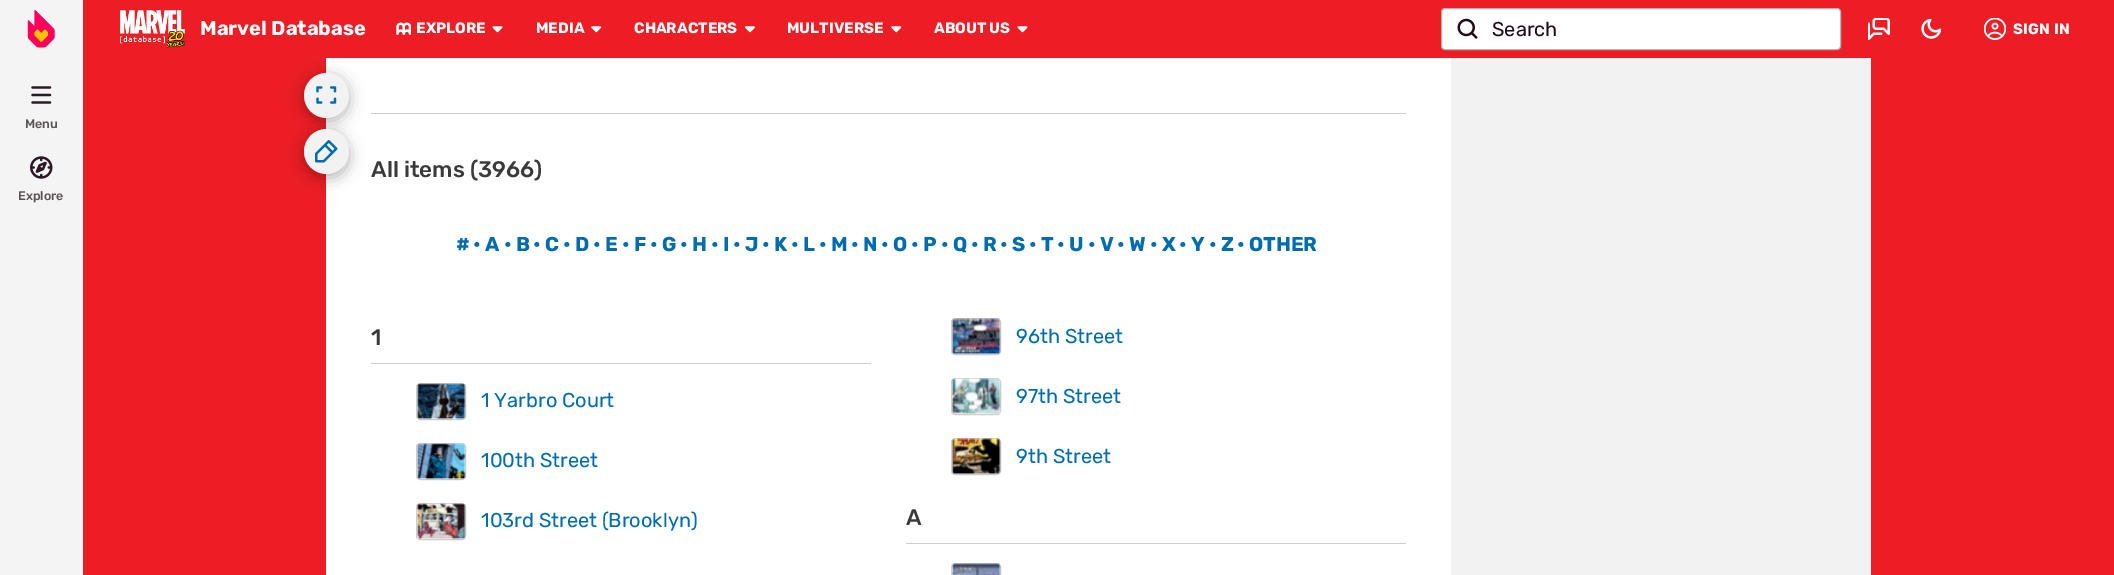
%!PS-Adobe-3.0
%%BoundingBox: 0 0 2114 575
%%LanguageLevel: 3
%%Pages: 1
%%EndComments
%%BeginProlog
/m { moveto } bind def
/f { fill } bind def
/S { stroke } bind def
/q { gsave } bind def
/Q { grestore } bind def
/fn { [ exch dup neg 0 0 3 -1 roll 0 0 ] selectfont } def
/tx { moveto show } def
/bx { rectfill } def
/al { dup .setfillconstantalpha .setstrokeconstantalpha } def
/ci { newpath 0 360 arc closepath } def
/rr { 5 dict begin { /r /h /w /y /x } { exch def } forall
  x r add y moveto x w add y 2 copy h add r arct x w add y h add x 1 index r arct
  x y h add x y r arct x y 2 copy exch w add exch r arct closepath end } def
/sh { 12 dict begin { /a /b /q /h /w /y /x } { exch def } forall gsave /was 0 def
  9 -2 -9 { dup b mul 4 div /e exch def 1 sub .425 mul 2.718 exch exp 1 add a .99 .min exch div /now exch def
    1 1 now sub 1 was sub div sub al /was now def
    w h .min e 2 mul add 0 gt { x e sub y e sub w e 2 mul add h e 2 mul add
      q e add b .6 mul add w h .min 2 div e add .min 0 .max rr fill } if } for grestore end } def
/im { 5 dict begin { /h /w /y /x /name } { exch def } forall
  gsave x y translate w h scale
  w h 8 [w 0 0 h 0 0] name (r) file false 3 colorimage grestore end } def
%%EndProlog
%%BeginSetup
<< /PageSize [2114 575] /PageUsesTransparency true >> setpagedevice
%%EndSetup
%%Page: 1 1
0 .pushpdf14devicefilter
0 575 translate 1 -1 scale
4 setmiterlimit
0.925 0.114 0.141 setrgbcolor
0 0 2114 575 bx
0.957 setgray
0 0 83 575 bx
(image0.raw) 27 10 28 38 im
(image1.raw) 120 10 65 38 im
/Rubik-Bold 20 fn
1 setgray
(Marvel Database) 200 35 tx
(image2.raw) 396 22 15 13 im
/Rubik-Bold 15 fn
(EXPLORE) 416 33 tx
(image3.raw) 492 26 11 7 im
(MEDIA) 536 33 tx
(image4.raw) 591 26 11 7 im
(CHARACTERS) 634 33 tx
(image5.raw) 745 26 10 7 im
(MULTIVERSE) 787 33 tx
(image4.raw) 891 26 11 7 im
(ABOUT US) 934 33 tx
(image3.raw) 1017 26 11 7 im
1441.5 8.5 399 41 3.5 rr q f Q
0.702 setgray
S
(image6.raw) 1457 18 21 21 im
/Rubik-Regular 20 fn
0.118 0.047 0.106 setrgbcolor
(Search) 1492 36 tx
(image7.raw) 1868 18 22 22 im
(image8.raw) 1921 18 21 21 im
(image9.raw) 1984 18 22 22 im
/Rubik-Bold 15 fn
1 setgray
2013 34 m 0.25 0 (SIGN IN) ashow
(image10.raw) 31 86 21 18 im
/Rubik-Medium 12.5 fn
0.349 0.325 0.345 setrgbcolor
(Menu) 25 128 tx
(image11.raw) 30 156 23 23 im
(Explore) 18 200 tx
1 setgray
326 58 1125 517 bx
0.808 setgray
371 113 1035 1 bx
0 setgray
304 76 45 45 22.5 7.5 0.3 sh
0.949 setgray
326.5 95.5 22.5 ci f
(image12.raw) 316 86 21 18 im
0 setgray
304 133 45 45 22.5 7.5 0.3 sh
0.949 setgray
326.5 151.5 22.5 ci f
(image13.raw) 315 140 23 23 im
/Rubik-Medium 22.5 fn
0.227 setgray
(All items \(3966\)) 371 177 tx
/Rubik-Bold 20 fn
0 0.424 0.69 setrgbcolor
(#) 456 251 tx
(• A) 473 251 tx
(• B) 504 251 tx
(• C) 533 251 tx
(• D) 563 251 tx
(• E) 593 251 tx
(• F) 622 251 tx
(• G) 650 251 tx
(• H) 680 251 tx
(• I) 711 251 tx
(• J) 733 251 tx
(• K) 762 251 tx
(• L) 791 251 tx
(• M) 819 251 tx
(• N) 851 251 tx
(• O) 881 251 tx
(• P) 911 251 tx
(• Q) 941 251 tx
(• R) 971 251 tx
(• S) 1000 251 tx
(• T) 1029 251 tx
(• U) 1057 251 tx
(• V) 1088 251 tx
(• W) 1117 251 tx
(• X) 1150 251 tx
(• Y) 1179 251 tx
(• Z) 1209 251 tx
(• OTHER) 1237 251 tx
0.808 setgray
371 363 500 1 bx
/Rubik-Medium 22.5 fn
0.227 setgray
(1) 371 345 tx
0.808 setgray
416.5 383.5 49 36 3.5 rr S
(image14.raw) 417 383 49 37 im
/Rubik-Regular 20 fn
0 0.424 0.69 setrgbcolor
(1 Yarbro Court) 481 407 tx
0.808 setgray
416.5 443.5 49 36 3.5 rr S
(image15.raw) 417 443 49 37 im
0 0.424 0.69 setrgbcolor
(100th Street) 481 467 tx
0.808 setgray
416.5 503.5 49 36 3.5 rr S
(image16.raw) 417 503 49 37 im
0 0.424 0.69 setrgbcolor
(103rd Street \(Brooklyn\)) 481 527 tx
0.808 setgray
906 543 500 1 bx
/Rubik-Medium 22.5 fn
0.227 setgray
(A) 906 525 tx
0.808 setgray
951.5 563.5 49 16 3.5 rr S
(image17.raw) 952 563 49 12 im
951.5 318.5 49 36 3.5 rr S
(image18.raw) 952 318 49 37 im
/Rubik-Regular 20 fn
0 0.424 0.69 setrgbcolor
(96th Street) 1016 343 tx
0.808 setgray
951.5 378.5 49 36 3.5 rr S
(image19.raw) 952 378 49 36 im
0 0.424 0.69 setrgbcolor
(97th Street) 1016 403 tx
0.808 setgray
951.5 438.5 49 36 3.5 rr S
(image20.raw) 952 438 49 37 im
0 0.424 0.69 setrgbcolor
(9th Street) 1016 463 tx
0.949 setgray
1451 58 420 517 bx
.poppdf14devicefilter showpage
%%EOF
